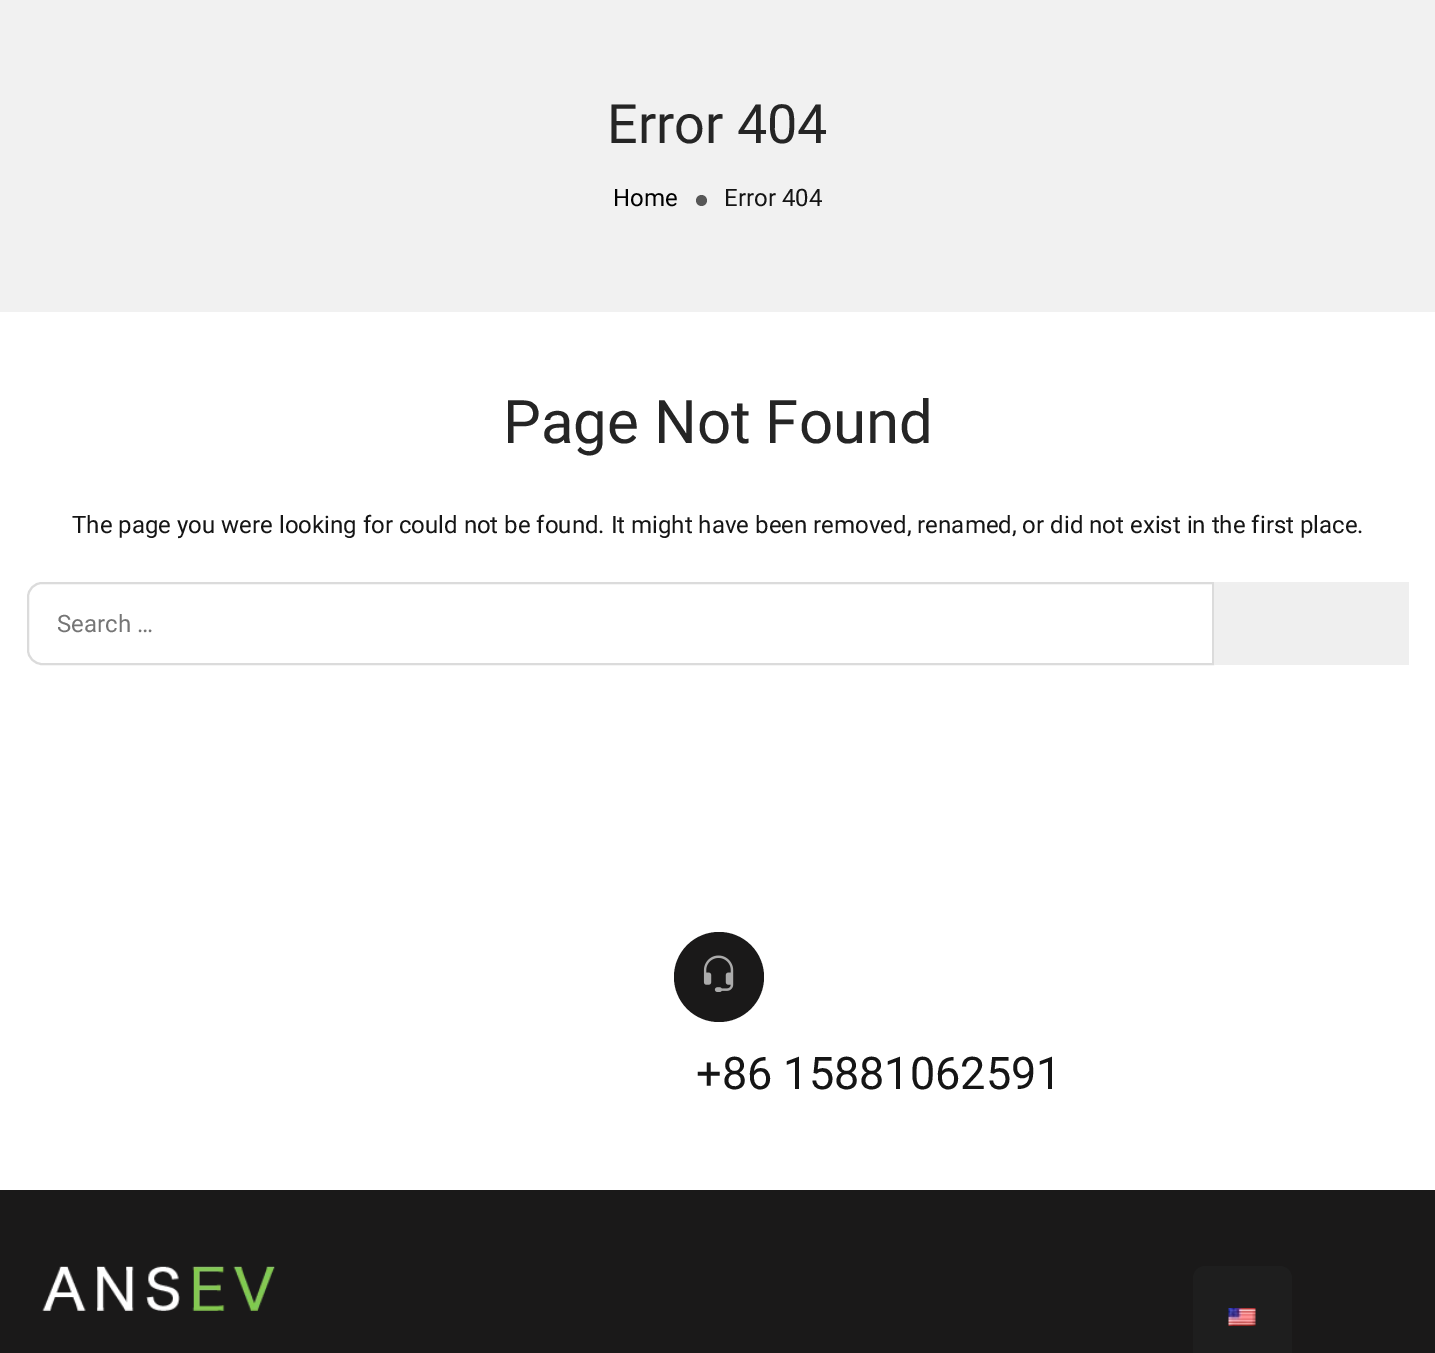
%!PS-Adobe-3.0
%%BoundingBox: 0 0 1435 1353
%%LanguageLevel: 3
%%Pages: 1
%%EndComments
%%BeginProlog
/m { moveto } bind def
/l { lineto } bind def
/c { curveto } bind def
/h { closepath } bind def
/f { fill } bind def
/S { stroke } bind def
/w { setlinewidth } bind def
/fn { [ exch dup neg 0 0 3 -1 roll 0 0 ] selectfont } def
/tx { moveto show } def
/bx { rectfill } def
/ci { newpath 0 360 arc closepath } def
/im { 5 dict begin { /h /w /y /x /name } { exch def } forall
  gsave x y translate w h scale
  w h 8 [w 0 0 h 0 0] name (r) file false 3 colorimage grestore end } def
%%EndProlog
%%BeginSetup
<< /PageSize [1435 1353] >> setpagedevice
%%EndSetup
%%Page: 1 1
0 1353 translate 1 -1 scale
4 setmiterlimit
1 setgray
0 0 1435 1353 bx
0.945 setgray
0 0 1435 312 bx
/Roboto-Regular 54 fn
0.145 setgray
(Error 404) 607 143 tx
/Roboto-Regular 24 fn
0 setgray
(Home) 613 206 tx
0.341 setgray
701.5 200.5 5.5 ci f
0.082 setgray
(Error 404) 724 206 tx
/Roboto-Regular 60 fn
0.145 setgray
(Page Not Found) 503 443 tx
/Roboto-Regular 24 fn
0.082 setgray
(The page you were looking for could not be found. It might have been removed, renamed, or did not exist in the first place.) 72 533 tx
0.859 setgray
2 w
42 583 m 1213 583 l 1213 664 l 42 664 l 34.5 664 28 657.5 28 650 c 28 597 l 28 589.5 34.5 583 42 583 c h S
0.459 setgray
(Search …) 57 632 tx
0.937 setgray
1214 582 195 83 bx
0.102 0.098 0.098 setrgbcolor
719 977 45 ci f
(image0.raw) 703 955 31 37 im
/Roboto-Regular 45 fn
0.082 setgray
(+86 15881062591) 696 1089 tx
0.102 0.098 0.098 setrgbcolor
0 1190 1435 163 bx
(image1.raw) 42 1266 233 45 im
0.118 setgray
1205 1266 m 1280 1266 l 1286.5 1266 1292 1271.5 1292 1278 c 1292 1353 l 1193 1353 l 1193 1278 l 1193 1271.5 1198.5 1266 1205 1266 c h f
(image2.raw) 1228 1308 28 18 im
showpage
%%EOF
